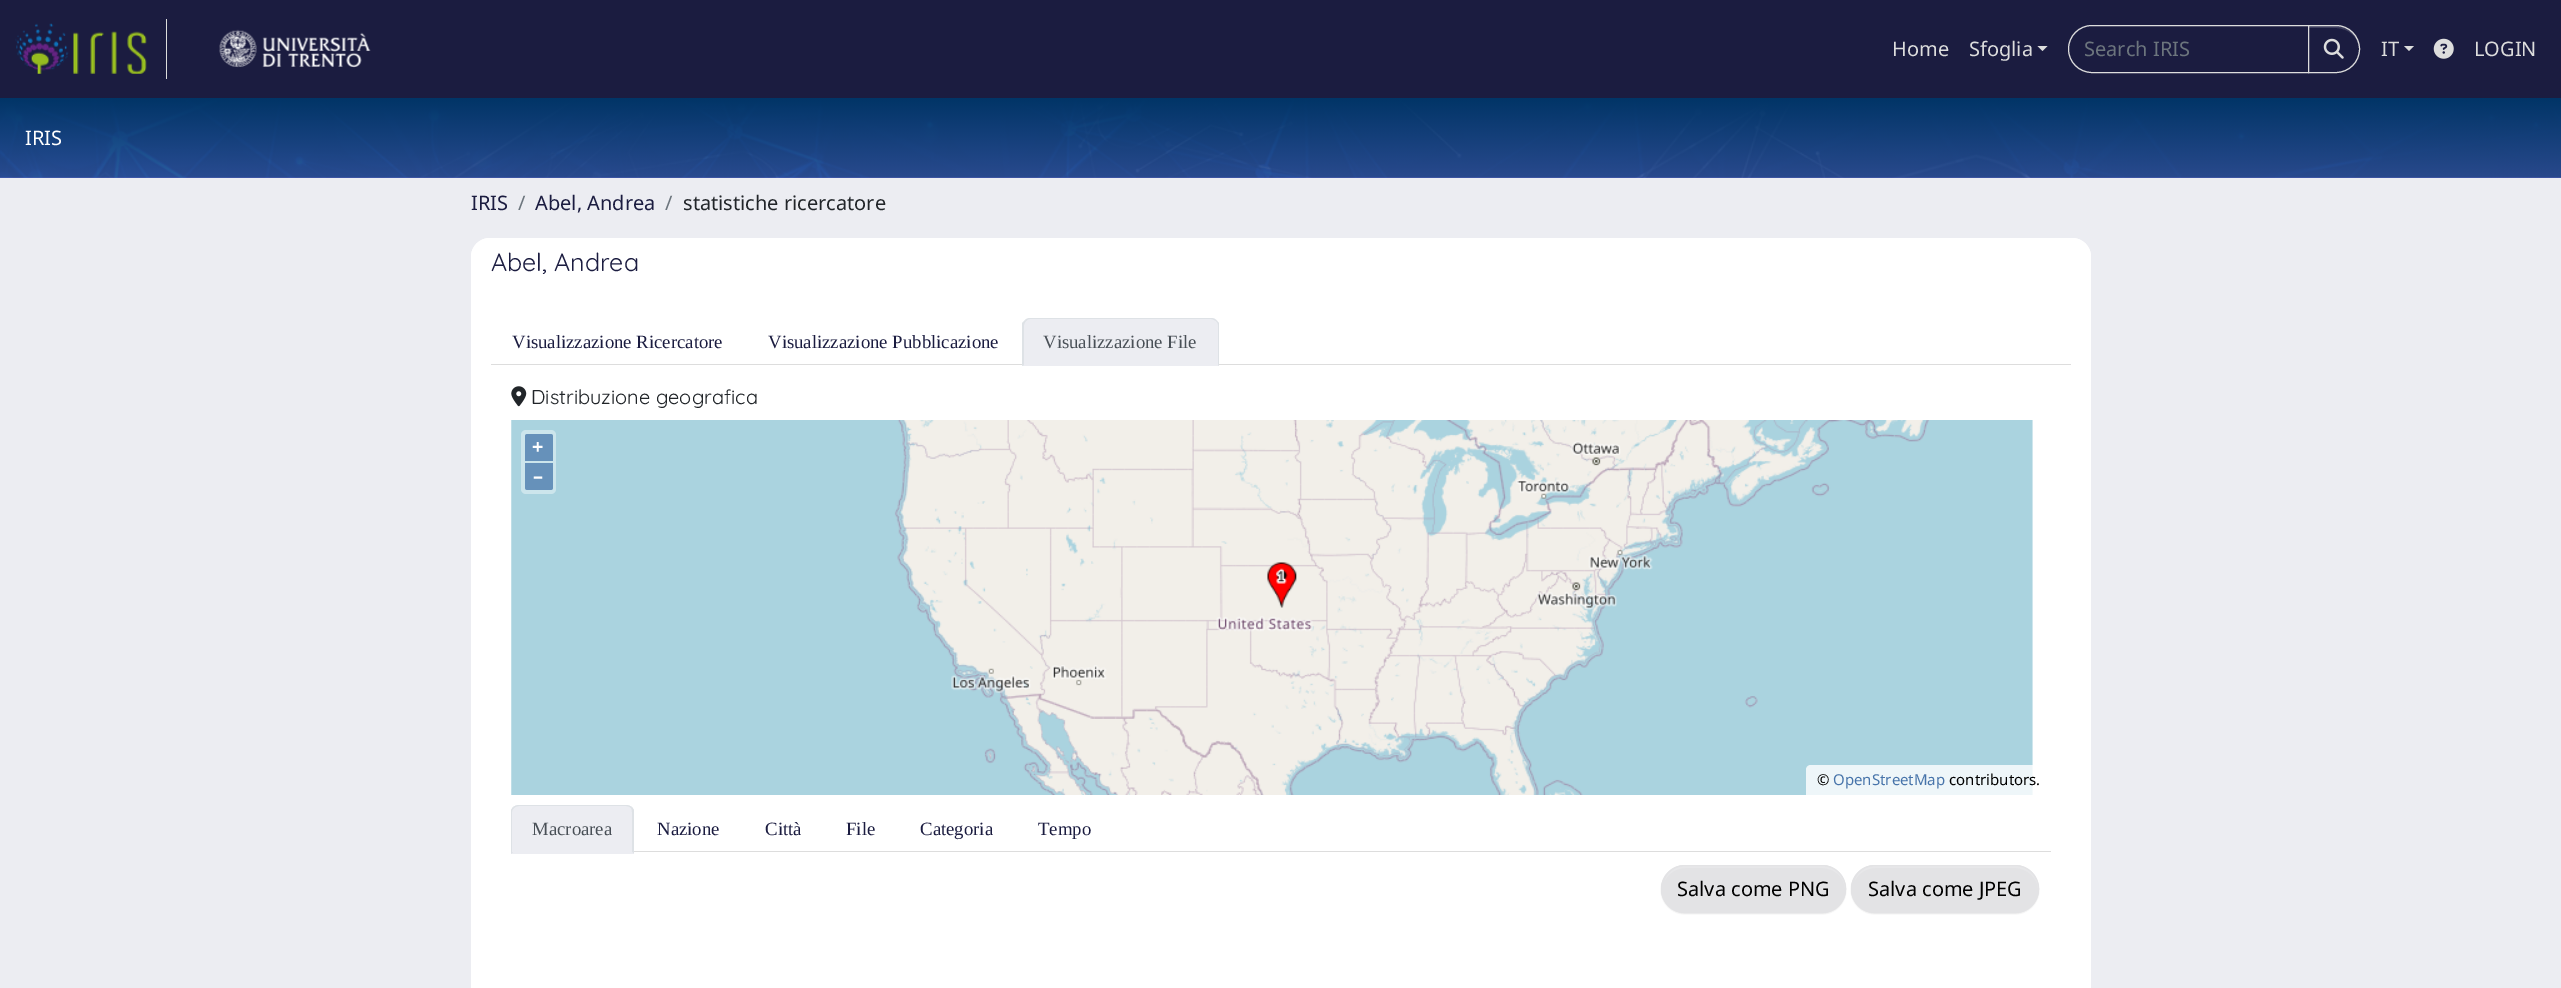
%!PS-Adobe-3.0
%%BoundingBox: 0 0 2561 988
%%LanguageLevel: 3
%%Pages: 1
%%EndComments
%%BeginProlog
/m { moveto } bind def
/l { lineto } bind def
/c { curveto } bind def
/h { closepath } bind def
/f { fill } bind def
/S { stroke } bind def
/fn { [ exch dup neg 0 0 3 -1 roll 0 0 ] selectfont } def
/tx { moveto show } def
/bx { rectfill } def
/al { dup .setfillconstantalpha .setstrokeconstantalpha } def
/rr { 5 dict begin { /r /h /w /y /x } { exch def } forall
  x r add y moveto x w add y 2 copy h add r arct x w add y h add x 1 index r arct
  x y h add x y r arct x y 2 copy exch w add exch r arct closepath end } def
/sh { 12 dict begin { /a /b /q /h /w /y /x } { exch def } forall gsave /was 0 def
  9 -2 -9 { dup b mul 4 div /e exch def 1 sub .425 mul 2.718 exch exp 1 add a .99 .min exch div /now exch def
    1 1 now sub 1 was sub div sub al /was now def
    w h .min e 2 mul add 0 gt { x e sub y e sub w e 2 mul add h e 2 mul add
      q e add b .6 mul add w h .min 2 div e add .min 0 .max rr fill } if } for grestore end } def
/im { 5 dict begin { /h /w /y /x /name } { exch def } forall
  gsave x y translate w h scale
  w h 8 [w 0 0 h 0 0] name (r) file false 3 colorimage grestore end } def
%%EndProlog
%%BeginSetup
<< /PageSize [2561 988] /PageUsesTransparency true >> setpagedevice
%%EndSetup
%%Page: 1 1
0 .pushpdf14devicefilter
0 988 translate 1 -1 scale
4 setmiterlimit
0.925 0.929 0.949 setrgbcolor
0 0 2561 988 bx
0.106 0.11 0.251 setrgbcolor
0 0 2561 98 bx
0.867 setgray
166 19 1 60 bx
(image0.raw) 15 23 132 51 im
(image1.raw) 219 29 152 39 im
/NotoSans-Regular 20 fn
(Home) 1892 56 tx
(Sfoglia) 1969 56 tx
2037.5 46 m 2047.5 46 l 2042.5 51 l h f
2092 25.5 m 2308.5 25.5 l 2308.5 72.5 l 2092 72.5 l 2079 72.5 2068.5 62 2068.5 49 c 2068.5 36 2079 25.5 2092 25.5 c h S
0.424 0.459 0.49 setrgbcolor
(Search IRIS) 2084 56 tx
0 setgray
2308 26 52 48 24 0.5 0.07 sh
0.106 0.11 0.251 setrgbcolor
2308 25 m 2336 25 l 2349.5 25 2360 35.5 2360 49 c 2360 62.5 2349.5 73 2336 73 c 2308 73 l h f
0.239 0.243 0.365 setrgbcolor
2309 28 m 2336 28 l 2349 28 2359 38 2359 49 c 2359 48 l 2359 36 2349 26 2336 26 c 2309 26 l h f
0.867 setgray
2308.5 25.5 m 2336 25.5 l 2349 25.5 2359.5 36 2359.5 49 c 2359.5 62 2349 72.5 2336 72.5 c 2308.5 72.5 l h S
(image2.raw) 2323 38 21 21 im
(IT) 2381 56 tx
2404 46 m 2414 46 l 2409 51 l h f
(image3.raw) 2433 38 21 21 im
(LOGIN) 2474 56 tx
0.318 0.373 0.71 setrgbcolor
0 177 2561 1 bx
(image4.raw) 0 98 2561 80 im
1 setgray
(IRIS) 25 145 tx
0.106 0.11 0.251 setrgbcolor
(IRIS) 471 210 tx
0.424 0.459 0.49 setrgbcolor
(/) 518 210 tx
0.106 0.11 0.251 setrgbcolor
(Abel, Andrea) 535 210 tx
0.424 0.459 0.49 setrgbcolor
(/) 665 210 tx
0.129 0.145 0.161 setrgbcolor
(statistiche ricercatore) 683 210 tx
1 setgray
471 238 1620 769 19 rr f
490 238 m 2072 238 l 2082.5 238 2091 246.5 2091 257 c 2091 298 l 471 298 l 471 257 l 471 246.5 479.5 238 490 238 c h f
/Quicksand-Regular 25 fn
0.106 0.11 0.251 setrgbcolor
(Abel, Andrea) 491 271 tx
0.867 setgray
491 364 1580 1 bx
/LiberationSerif-Regular 18.75 fn
0.106 0.11 0.251 setrgbcolor
(Visualizzazione Ricercatore) 512 348 tx
(Visualizzazione Pubblicazione) 768 348 tx
0.925 0.929 0.949 setrgbcolor
1031 318 m 1211 318 l 1215.5 318 1219 321.5 1219 326 c 1219 366 l 1023 366 l 1023 326 l 1023 321.5 1026.5 318 1031 318 c h f
0.871 0.886 0.902 setrgbcolor
1030 318 m 1028 318 1026 319 1025 320 c 1026 321 l 1027 320 1028 319 1030 319 c 1211 319 l 1213 319 1214 320 1216 321 c 1216 320 l 1215 319 1213 318 1211 318 c h f
1216 320 m 1219 323 l 1219 366 l 1218 365 l 1218 325 l 1218 323 1217 322 1216 321 c h f
1022 323 m 1025 320 l 1026 321 l 1025 322 1024 324 1024 325 c 1024 365 l 1022 366 l h f
0.286 0.314 0.341 setrgbcolor
(Visualizzazione File) 1043 348 tx
(image5.raw) 511 386 16 21 im
/Quicksand-Regular 20 fn
0.129 0.145 0.161 setrgbcolor
(Distribuzione geografica) 531 404 tx
(image6.raw) 511 420 1522 375 im
0.8 0.898 0.925 setrgbcolor
521 430 35 64 5 rr f
0.4 0.569 0.729 setrgbcolor
527.5 434 m 550.5 434 l 552 434 553 435 553 436.5 c 553 461 l 525 461 l 525 436.5 l 525 435 526 434 527.5 434 c h f
/NotoSans-Bold 20 fn
1 setgray
(+) 532 454 tx
0.4 0.569 0.729 setrgbcolor
525 463 m 553 463 l 553 487.5 l 553 489 552 490 550.5 490 c 527.5 490 l 526 490 525 489 525 487.5 c h f
1 setgray
(–) 533 483 tx
0.8 al
1811 765 m 2051 765 l 2051 795 l 1806 795 l 1806 770 l 1806 767 1808 765 1811 765 c h f
/NotoSans-Regular 15 fn
1 al
0 setgray
(©) 1817 785 tx
0.278 0.455 0.667 setrgbcolor
(OpenStreetMap) 1833 785 tx
0 setgray
(contributors.) 1949 785 tx
0.867 setgray
634 851 1417 1 bx
0.925 0.929 0.949 setrgbcolor
519 805 m 626 805 l 630.5 805 634 808.5 634 813 c 634 854 l 511 854 l 511 813 l 511 808.5 514.5 805 519 805 c h f
0.871 0.886 0.902 setrgbcolor
519 805 m 517 805 515 806 513 807 c 514 808 l 515 807 517 806 519 806 c 626 806 l 628 806 630 807 631 808 c 632 807 l 630 806 628 805 626 805 c h f
632 807 m 634 810 l 634 854 l 632 852 l 632 812 l 632 811 632 809 631 808 c h f
0.925 0.929 0.949 setrgbcolor
634 854 m 632 852 l 513 852 l 511 854 l h f
0.871 0.886 0.902 setrgbcolor
511 854 m 511 810 l 513 807 l 514 808 l 513 809 512 810 512 812 c 512 852 l 513 852 l h f
/LiberationSerif-Regular 18.75 fn
0.286 0.314 0.341 setrgbcolor
(Macroarea) 532 835 tx
0.106 0.11 0.251 setrgbcolor
(Nazione) 657 835 tx
(Città) 765 835 tx
(File) 846 835 tx
(Categoria) 920 835 tx
(Tempo) 1038 835 tx
0 setgray
1661 866 185 48 24 0.5 0.07 sh
0.89 0.89 0.898 setrgbcolor
1661 865 185 48 24 rr f
0.906 0.906 0.914 setrgbcolor
1685 868 m 1822 868 l 1835 868 1845 878 1845 889 c 1845 888 l 1845 876 1835 866 1822 866 c 1686 866 l 1676 866 1668 872 1665 880 c 1669 873 1677 868 1685 868 c h f
0.89 0.89 0.898 setrgbcolor
1661.5 865.5 184 47 23.5 rr S
/NotoSans-Regular 20 fn
0 setgray
(Salva come PNG) 1677 896 tx
1851 866 188 48 24 0.5 0.07 sh
0.89 0.89 0.898 setrgbcolor
1851 865 188 48 24 rr f
0.906 0.906 0.914 setrgbcolor
1875 868 m 2015 868 l 2027 868 2038 878 2038 889 c 2038 888 l 2038 876 2028 866 2016 866 c 1876 866 l 1866 866 1858 872 1855 880 c 1859 873 1867 868 1875 868 c h f
0.89 0.89 0.898 setrgbcolor
1851.5 865.5 187 47 23.5 rr S
0 setgray
(Salva come JPEG) 1868 896 tx
.poppdf14devicefilter showpage
%%EOF
